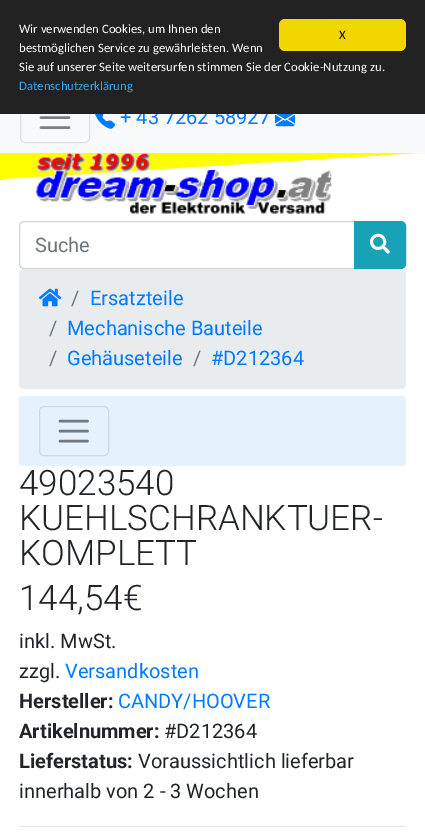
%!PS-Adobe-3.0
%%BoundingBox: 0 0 425 836
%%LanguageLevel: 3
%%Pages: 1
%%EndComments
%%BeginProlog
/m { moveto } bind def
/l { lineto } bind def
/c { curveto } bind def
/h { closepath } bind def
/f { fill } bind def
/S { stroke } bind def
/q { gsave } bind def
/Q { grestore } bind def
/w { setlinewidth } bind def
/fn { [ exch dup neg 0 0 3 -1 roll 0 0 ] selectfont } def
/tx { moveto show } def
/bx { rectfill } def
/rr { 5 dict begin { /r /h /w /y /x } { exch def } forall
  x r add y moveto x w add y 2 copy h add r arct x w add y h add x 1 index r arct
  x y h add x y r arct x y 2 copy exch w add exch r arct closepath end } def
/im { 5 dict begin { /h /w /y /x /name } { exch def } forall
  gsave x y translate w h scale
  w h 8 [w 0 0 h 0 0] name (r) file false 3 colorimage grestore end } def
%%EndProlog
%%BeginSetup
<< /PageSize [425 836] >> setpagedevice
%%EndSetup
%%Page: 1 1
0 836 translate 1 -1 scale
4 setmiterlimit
1 setgray
0 0 425 836 bx
0.973 0.976 0.98 setrgbcolor
0 114 425 39 bx
0.875 0.878 0.882 setrgbcolor
20.5 93.5 69 49 4.5 rr S
0.486 0.49 0.49 setrgbcolor
2.5 w
1 setlinecap
41 107.5 m 69 107.5 l 41 117.5 m 69 117.5 l 41 127.5 m 69 127.5 l S
/Roboto-Regular 20 fn
0 0.482 1 setrgbcolor
(+ 43 7262 58927) 120 124 tx
0.133 setgray
0 0 425 114 bx
/Carlito-Regular 12.75 fn
1 setgray
(Wir verwenden Cookies, um Ihnen den) 19 33 tx
(bestmöglichen Service zu gewährleisten. Wenn) 19 52 tx
(Sie auf unserer Seite weitersurfen stimmen Sie der Cookie-Nutzung zu.) 19 71 tx
0.192 0.659 0.941 setrgbcolor
(Datenschutzerklärung) 19 90 tx
0.945 0.839 0 setrgbcolor
279 19 127 32 6 rr f
0 setgray
(X) 339 39 tx
(image0.raw) 95 114 20 15 im
(image1.raw) 275 114 20 13 im
(image2.raw) 0 153 425 27 im
(image3.raw) 36 153 296 61 im
0.808 0.831 0.855 setrgbcolor
1 w
0 setlinecap
24 221.5 m 354.5 221.5 l 354.5 268.5 l 24 268.5 l 21.5 268.5 19.5 266.5 19.5 264 c 19.5 226 l 19.5 223.5 21.5 221.5 24 221.5 c h S
/Roboto-Regular 20 fn
0.424 0.459 0.49 setrgbcolor
(Suche) 35 252 tx
0.09 0.635 0.722 setrgbcolor
354.5 221.5 m 401 221.5 l 403.5 221.5 405.5 223.5 405.5 226 c 405.5 264 l 405.5 266.5 403.5 268.5 401 268.5 c 354.5 268.5 l h q f Q
S
(image4.raw) 370 233 20 21 im
0.914 0.925 0.937 setrgbcolor
19 269 387 120 5 rr f
(image5.raw) 38 288 24 19 im
0.424 0.459 0.49 setrgbcolor
(/) 71 305 tx
0 0.482 1 setrgbcolor
(Ersatzteile) 90 305 tx
0.424 0.459 0.49 setrgbcolor
(/) 49 335 tx
0 0.482 1 setrgbcolor
(Mechanische Bauteile) 67 335 tx
0.424 0.459 0.49 setrgbcolor
(/) 49 365 tx
0 0.482 1 setrgbcolor
(Gehäuseteile) 67 365 tx
0.424 0.459 0.49 setrgbcolor
(/) 193 365 tx
0 0.482 1 setrgbcolor
(#D212364) 211 365 tx
0.89 0.949 0.992 setrgbcolor
19 396 387 70 4 rr f
0.8 0.855 0.894 setrgbcolor
39.5 406.5 69 49 4.5 rr S
0.447 0.475 0.498 setrgbcolor
2.5 w
1 setlinecap
60 421 m 87.5 421 l 60 431 m 87.5 431 l 60 441 m 87.5 441 l S
/Roboto-Light 35 fn
0.129 0.145 0.161 setrgbcolor
(49023540) 19 495 tx
(KUEHLSCHRANKTUER-) 19 530 tx
(KOMPLETT) 19 565 tx
(144,54€) 19 610 tx
/Roboto-Regular 20 fn
(inkl. MwSt.) 19 648 tx
(zzgl.) 19 678 tx
0 0.482 1 setrgbcolor
(Versandkosten) 65 678 tx
/Roboto-Bold 20 fn
0.129 0.145 0.161 setrgbcolor
(Hersteller:) 19 708 tx
/Roboto-Regular 20 fn
0 0.482 1 setrgbcolor
(CANDY/HOOVER) 118 708 tx
/Roboto-Bold 20 fn
0.129 0.145 0.161 setrgbcolor
(Artikelnummer:) 19 738 tx
/Roboto-Regular 20 fn
(#D212364) 164 738 tx
/Roboto-Bold 20 fn
(Lieferstatus:) 19 768 tx
/Roboto-Regular 20 fn
(Voraussichtlich lieferbar) 138 768 tx
(innerhalb von 2 - 3 Wochen) 19 798 tx
0.902 setgray
19 826 387 1 bx
showpage
%%EOF
